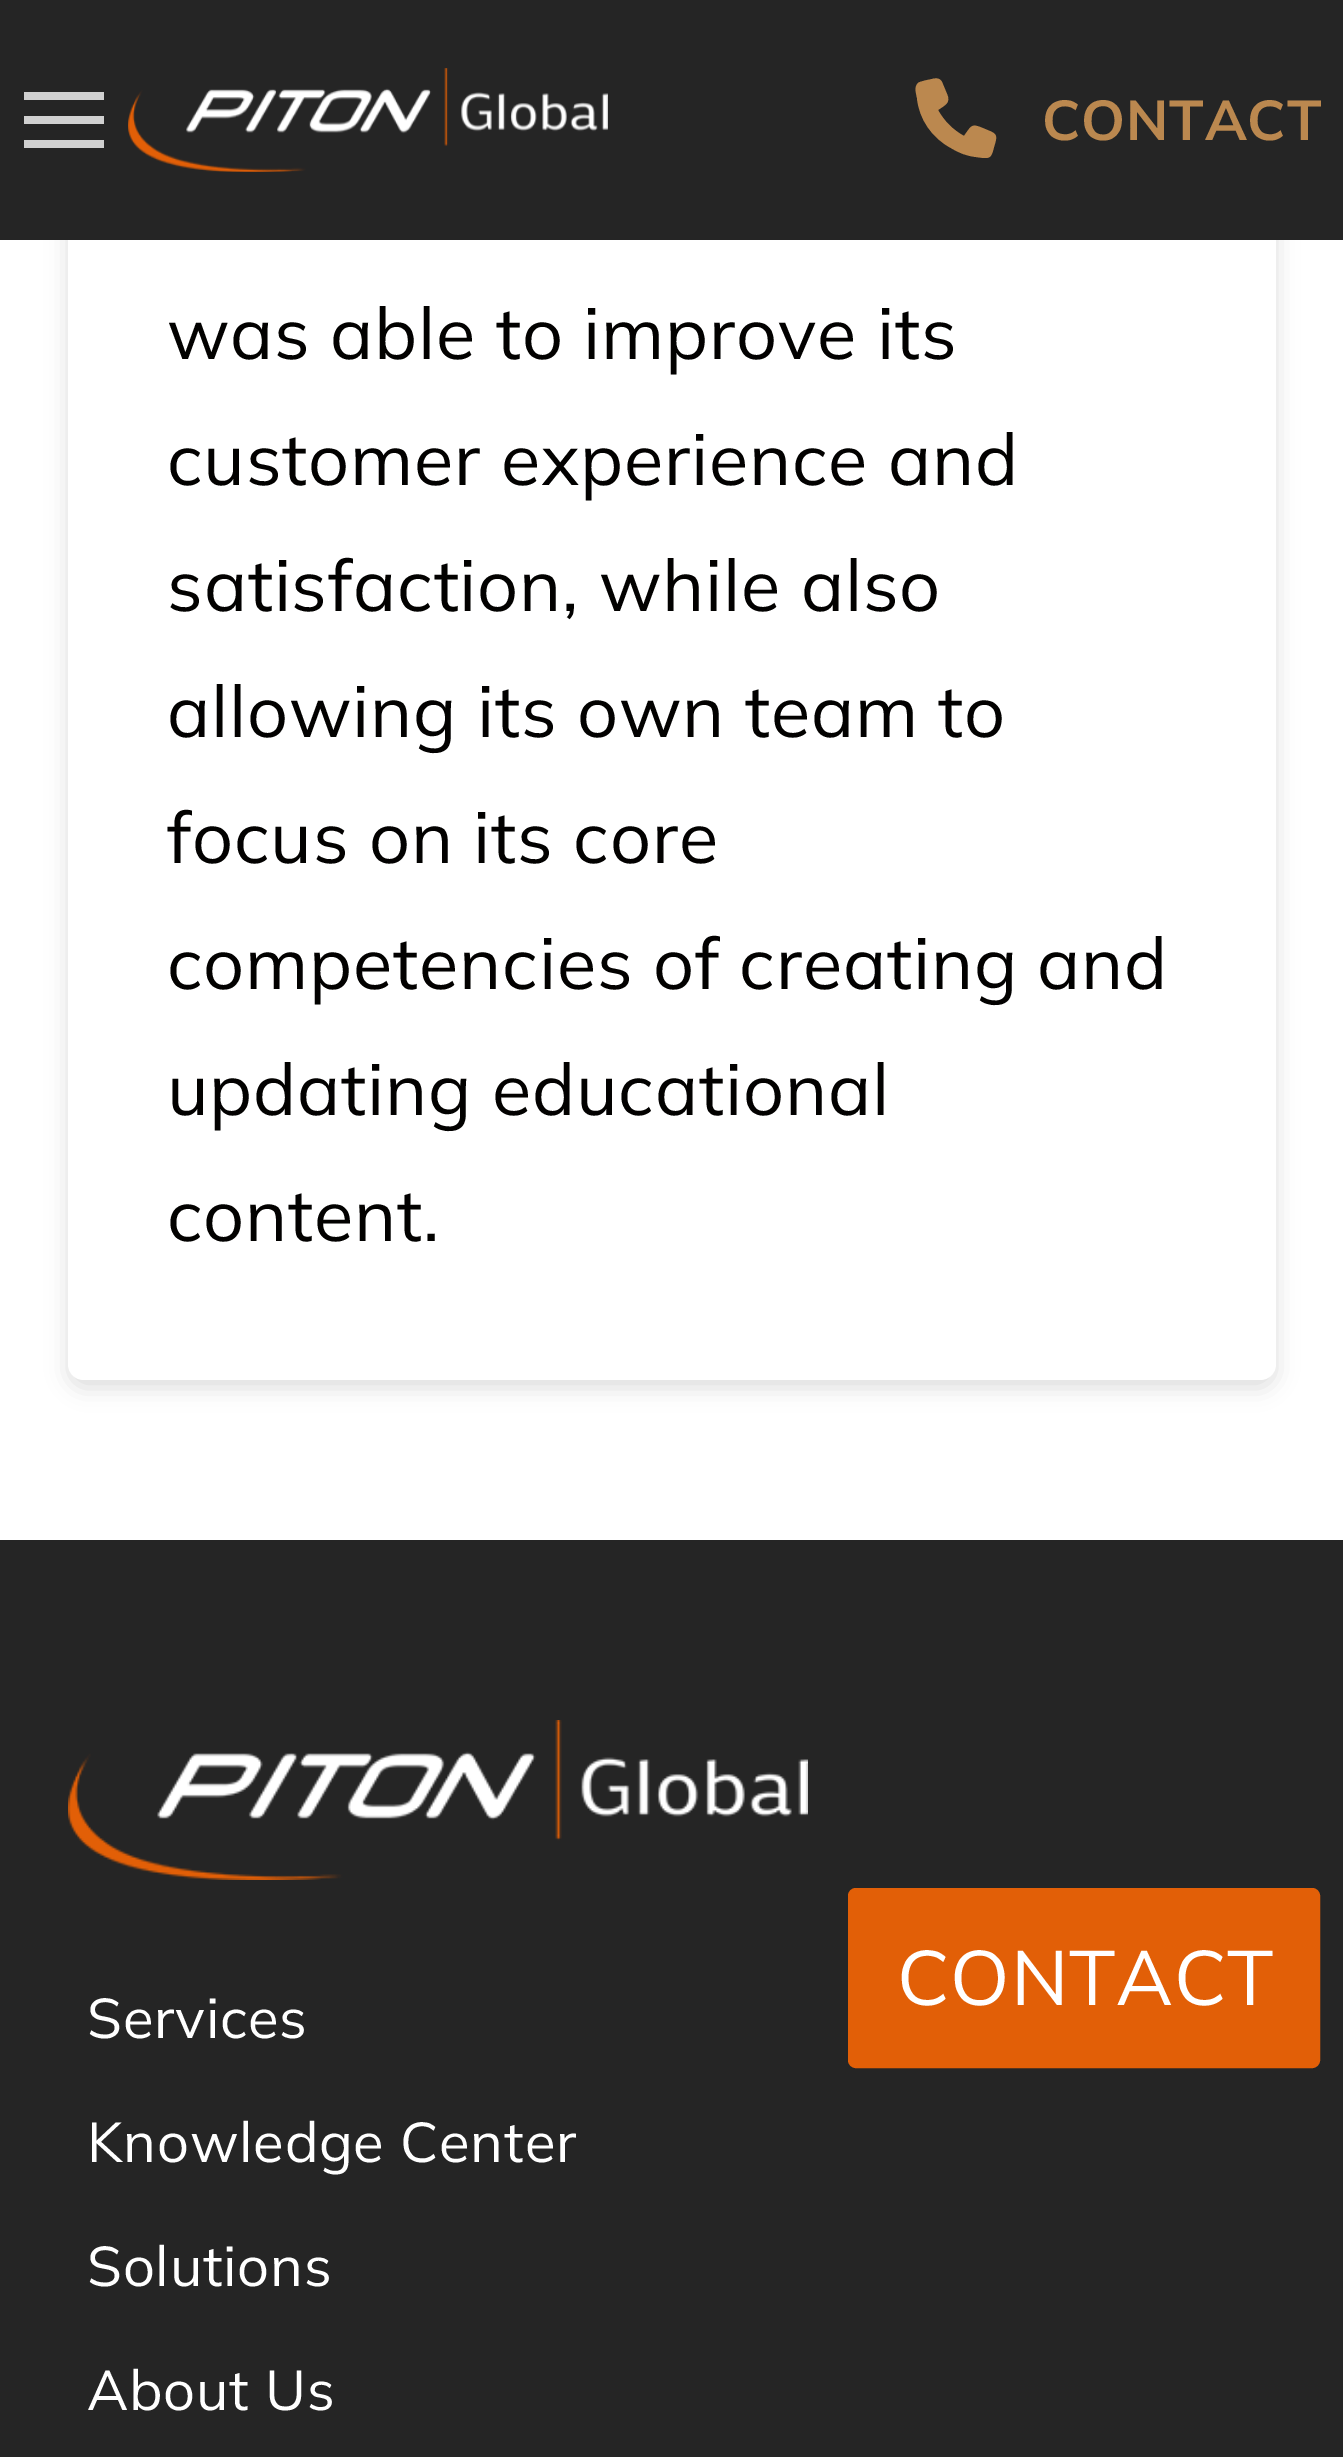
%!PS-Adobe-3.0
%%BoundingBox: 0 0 1343 2457
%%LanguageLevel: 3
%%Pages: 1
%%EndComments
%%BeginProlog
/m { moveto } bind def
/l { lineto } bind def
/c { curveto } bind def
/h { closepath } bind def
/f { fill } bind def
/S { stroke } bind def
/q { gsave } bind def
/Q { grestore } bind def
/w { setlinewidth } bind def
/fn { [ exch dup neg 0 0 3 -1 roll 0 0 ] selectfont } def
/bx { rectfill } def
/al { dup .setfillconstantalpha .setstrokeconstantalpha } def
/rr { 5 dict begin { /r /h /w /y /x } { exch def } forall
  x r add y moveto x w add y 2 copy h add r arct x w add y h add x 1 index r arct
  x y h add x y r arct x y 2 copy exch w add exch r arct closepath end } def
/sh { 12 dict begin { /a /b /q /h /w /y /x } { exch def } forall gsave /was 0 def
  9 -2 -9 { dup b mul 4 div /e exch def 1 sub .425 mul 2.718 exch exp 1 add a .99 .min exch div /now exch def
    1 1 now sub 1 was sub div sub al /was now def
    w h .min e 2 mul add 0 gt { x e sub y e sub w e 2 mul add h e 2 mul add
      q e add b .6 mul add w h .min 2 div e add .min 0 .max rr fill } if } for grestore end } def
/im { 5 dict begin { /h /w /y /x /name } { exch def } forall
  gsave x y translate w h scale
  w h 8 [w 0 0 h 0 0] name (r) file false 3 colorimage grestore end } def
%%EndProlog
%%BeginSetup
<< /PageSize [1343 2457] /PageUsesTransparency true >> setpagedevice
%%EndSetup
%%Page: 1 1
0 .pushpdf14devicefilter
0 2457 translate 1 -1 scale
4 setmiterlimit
1 setgray
0 0 1343 2457 bx
0 setgray
68 -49 1208 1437 16 11 0.13 sh
1 setgray
68 -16 m 1276 -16 l 1276 1364 l 1276 1373 1269 1380 1260 1380 c 84 1380 l 75 1380 68 1373 68 1364 c h f
0.145 setgray
0 0 1343 240 bx
0.816 setgray
24 92 80 8 bx
24 116 80 8 bx
24 140 80 8 bx
(image0.raw) 128 68 480 104 im
0.733 0.533 0.31 setrgbcolor
942 82 m 940 78 936 78 932 79 c 928 80 921 81 918 83 c 914 87 916 93 917 98 c 919 119 932 138 951 148 c 959 153 967 156 976 157 c 990 159 991 159 994 147 c 998 134 997 134 985 129 c 971 123 972 125 964 136 c 953 130 944 121 938 110 c 945 105 951 103 947 94 c h f
/Mulish-Bold 56 fn
1042 140 m 0.8 0 (CONTACT) ashow
/Mulish-Regular 72 fn
0.008 0.004 0 setrgbcolor
167 359 m 0.8 0 (was able to improve its) ashow
167 485 m 0.8 0 (customer experience and) ashow
167 611 m 0.8 0 (satisfaction, while also) ashow
167 737 m 0.8 0 (allowing its own team to) ashow
167 863 m 0.8 0 (focus on its core) ashow
167 989 m 0.8 0 (competencies of creating and) ashow
167 1115 m 0.8 0 (updating educational) ashow
167 1241 m 0.8 0 (content.) ashow
0.145 setgray
0 1540 1343 917 bx
0.886 0.373 0.027 setrgbcolor
852 1892 464 172 4 rr q f Q
8 w
S
/Mulish-Regular 77 fn
1 setgray
897 2005 m 0.8 0 (CONTACT) ashow
(image1.raw) 68 1720 740 160 im
/Mulish-Regular 56 fn
87 2038 m 0.8 0 (Services) ashow
87 2162 m 0.8 0 (Knowledge Center) ashow
87 2286 m 0.8 0 (Solutions) ashow
87 2410 m 0.8 0 (About Us) ashow
.poppdf14devicefilter showpage
%%EOF
